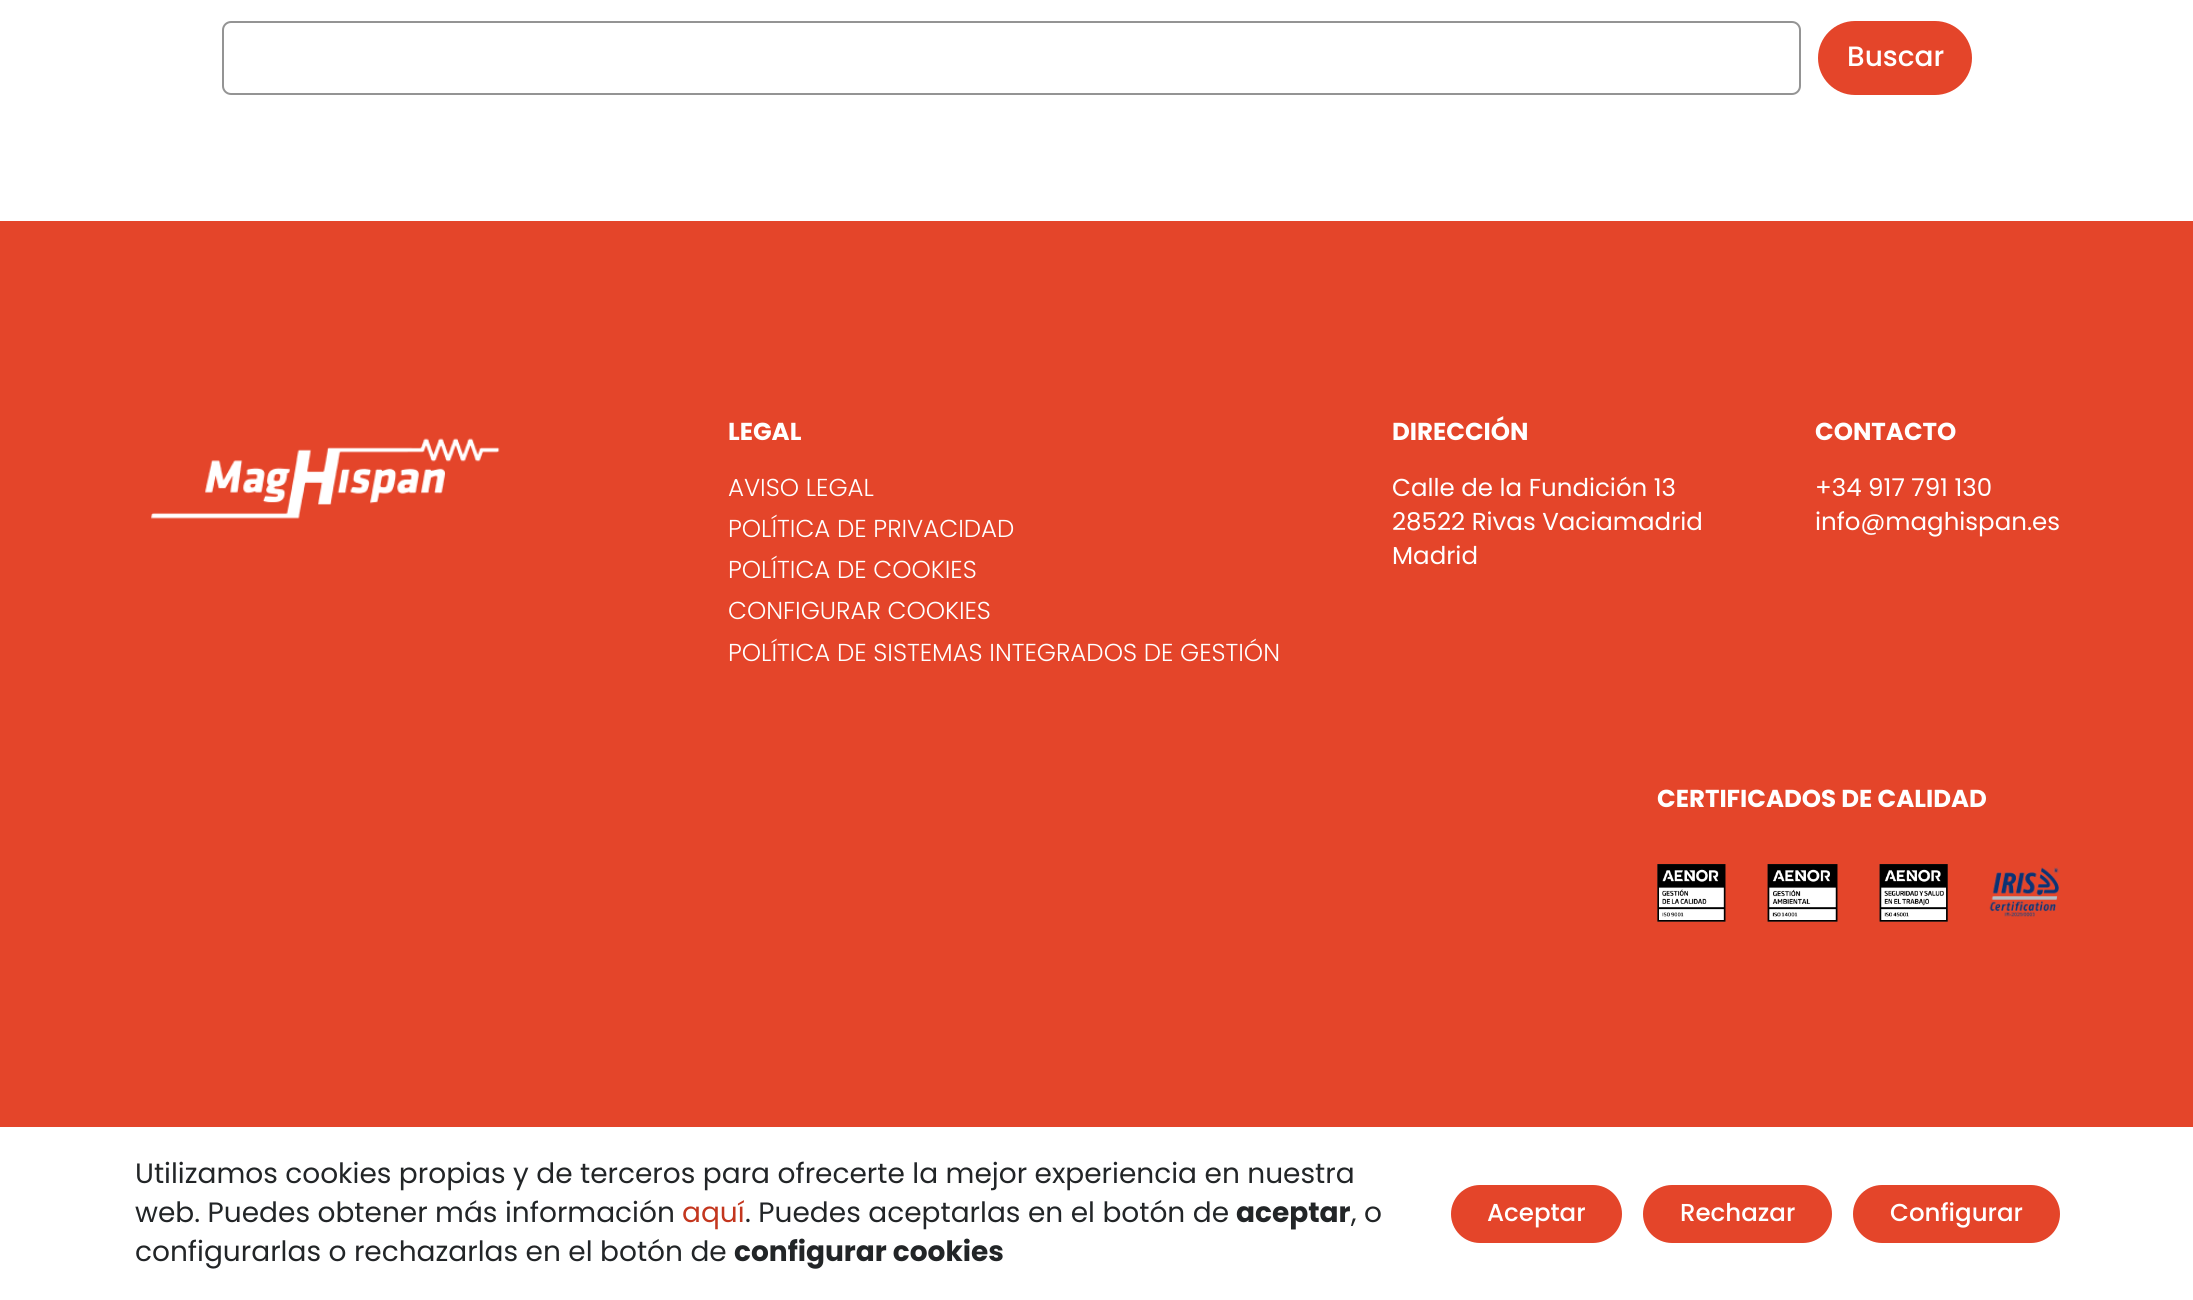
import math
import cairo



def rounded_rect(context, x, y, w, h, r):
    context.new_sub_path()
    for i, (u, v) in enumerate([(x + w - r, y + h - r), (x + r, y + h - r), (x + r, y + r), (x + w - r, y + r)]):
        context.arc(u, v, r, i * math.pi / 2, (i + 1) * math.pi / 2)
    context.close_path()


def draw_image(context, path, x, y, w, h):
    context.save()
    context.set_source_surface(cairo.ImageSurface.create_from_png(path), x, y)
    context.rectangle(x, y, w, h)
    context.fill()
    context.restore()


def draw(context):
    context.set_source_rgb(1, 1, 1)
    context.paint()
    rounded_rect(context, 223, 22, 1577, 72, 8)
    context.set_source_rgb(148 / 255, 148 / 255, 148 / 255)
    context.stroke()
    context.set_source_rgb(228 / 255, 69 / 255, 42 / 255)
    rounded_rect(context, 1818, 21, 154, 74, 37)
    context.fill()
    context.rectangle(0, 221, 2193, 906)
    context.fill()
    draw_image(context, "images/1.png", 151, 438, 349, 81)
    draw_image(context, "images/2.png", 1657, 864, 69, 58)
    draw_image(context, "images/3.png", 1767, 864, 71, 58)
    draw_image(context, "images/4.png", 1879, 864, 69, 58)
    draw_image(context, "images/5.png", 1989, 867, 70, 50)
    rounded_rect(context, 1451, 1185, 171, 58, 29)
    context.fill()
    rounded_rect(context, 1643, 1185, 189, 58, 29)
    context.fill()
    rounded_rect(context, 1853, 1185, 207, 58, 29)
    context.fill()
    context.select_font_face("Poppins Medium")
    context.set_font_size(28)
    context.set_source_rgb(1, 1, 1)
    context.move_to(1847, 66)
    context.show_text("Buscar")
    context.select_font_face("Poppins", cairo.FontSlant.NORMAL, cairo.FontWeight.BOLD)
    context.set_font_size(24.5)
    context.move_to(728, 440)
    context.show_text("LEGAL")
    context.select_font_face("Poppins Light")
    context.move_to(728, 496)
    context.show_text("AVISO LEGAL")
    context.move_to(728, 537)
    context.show_text("POLÍTICA DE PRIVACIDAD")
    context.move_to(728, 578)
    context.show_text("POLÍTICA DE COOKIES")
    context.move_to(728, 619)
    context.show_text("CONFIGURAR COOKIES")
    context.move_to(728, 661)
    context.show_text("POLÍTICA DE SISTEMAS INTEGRADOS DE GESTIÓN")
    context.select_font_face("Poppins", cairo.FontSlant.NORMAL, cairo.FontWeight.BOLD)
    context.move_to(1392, 440)
    context.show_text("DIRECCIÓN")
    context.select_font_face("Poppins")
    context.move_to(1392, 496)
    context.show_text("Calle de la Fundición 13")
    context.move_to(1392, 530)
    context.show_text("28522 Rivas Vaciamadrid")
    context.move_to(1392, 564)
    context.show_text("Madrid")
    context.select_font_face("Poppins", cairo.FontSlant.NORMAL, cairo.FontWeight.BOLD)
    context.move_to(1815, 440)
    context.show_text("CONTACTO")
    context.select_font_face("Poppins")
    context.move_to(1815, 496)
    context.show_text("+34 917 791 130")
    context.move_to(1815, 530)
    context.show_text("info@maghispan.es")
    context.select_font_face("Poppins", cairo.FontSlant.NORMAL, cairo.FontWeight.BOLD)
    context.move_to(1657, 807)
    context.show_text("CERTIFICADOS DE CALIDAD")
    context.select_font_face("Poppins")
    context.set_font_size(28)
    context.set_source_rgb(34 / 255, 37 / 255, 39 / 255)
    context.move_to(135, 1183)
    context.show_text("Utilizamos cookies propias y de terceros para ofrecerte la mejor experiencia en nuestra")
    context.move_to(135, 1222)
    context.show_text("web. Puedes obtener más información")
    context.set_source_rgb(195 / 255, 54 / 255, 30 / 255)
    context.move_to(682, 1222)
    context.show_text("aquí")
    context.set_source_rgb(34 / 255, 37 / 255, 39 / 255)
    context.move_to(745, 1222)
    context.show_text(". Puedes aceptarlas en el botón de")
    context.select_font_face("Poppins", cairo.FontSlant.NORMAL, cairo.FontWeight.BOLD)
    context.move_to(1236, 1222)
    context.show_text("aceptar")
    context.select_font_face("Poppins")
    context.move_to(1351, 1222)
    context.show_text(", o")
    context.move_to(135, 1261)
    context.show_text("configurarlas o rechazarlas en el botón de")
    context.select_font_face("Poppins", cairo.FontSlant.NORMAL, cairo.FontWeight.BOLD)
    context.move_to(734, 1261)
    context.show_text("configurar cookies")
    context.select_font_face("Poppins Medium")
    context.set_font_size(24.5)
    context.set_source_rgb(1, 1, 1)
    context.move_to(1487, 1221)
    context.show_text("Aceptar")
    context.move_to(1680, 1221)
    context.show_text("Rechazar")
    context.move_to(1890, 1221)
    context.show_text("Configurar")


surface = cairo.ImageSurface(cairo.Format.RGB24, 2193, 1300)
context = cairo.Context(surface)
options = cairo.FontOptions()
options.set_hint_metrics(cairo.HintMetrics.OFF)
options.set_hint_style(cairo.HintStyle.NONE)
context.set_font_options(options)
context.set_miter_limit(4)
draw(context)
surface.write_to_png("out.png")
